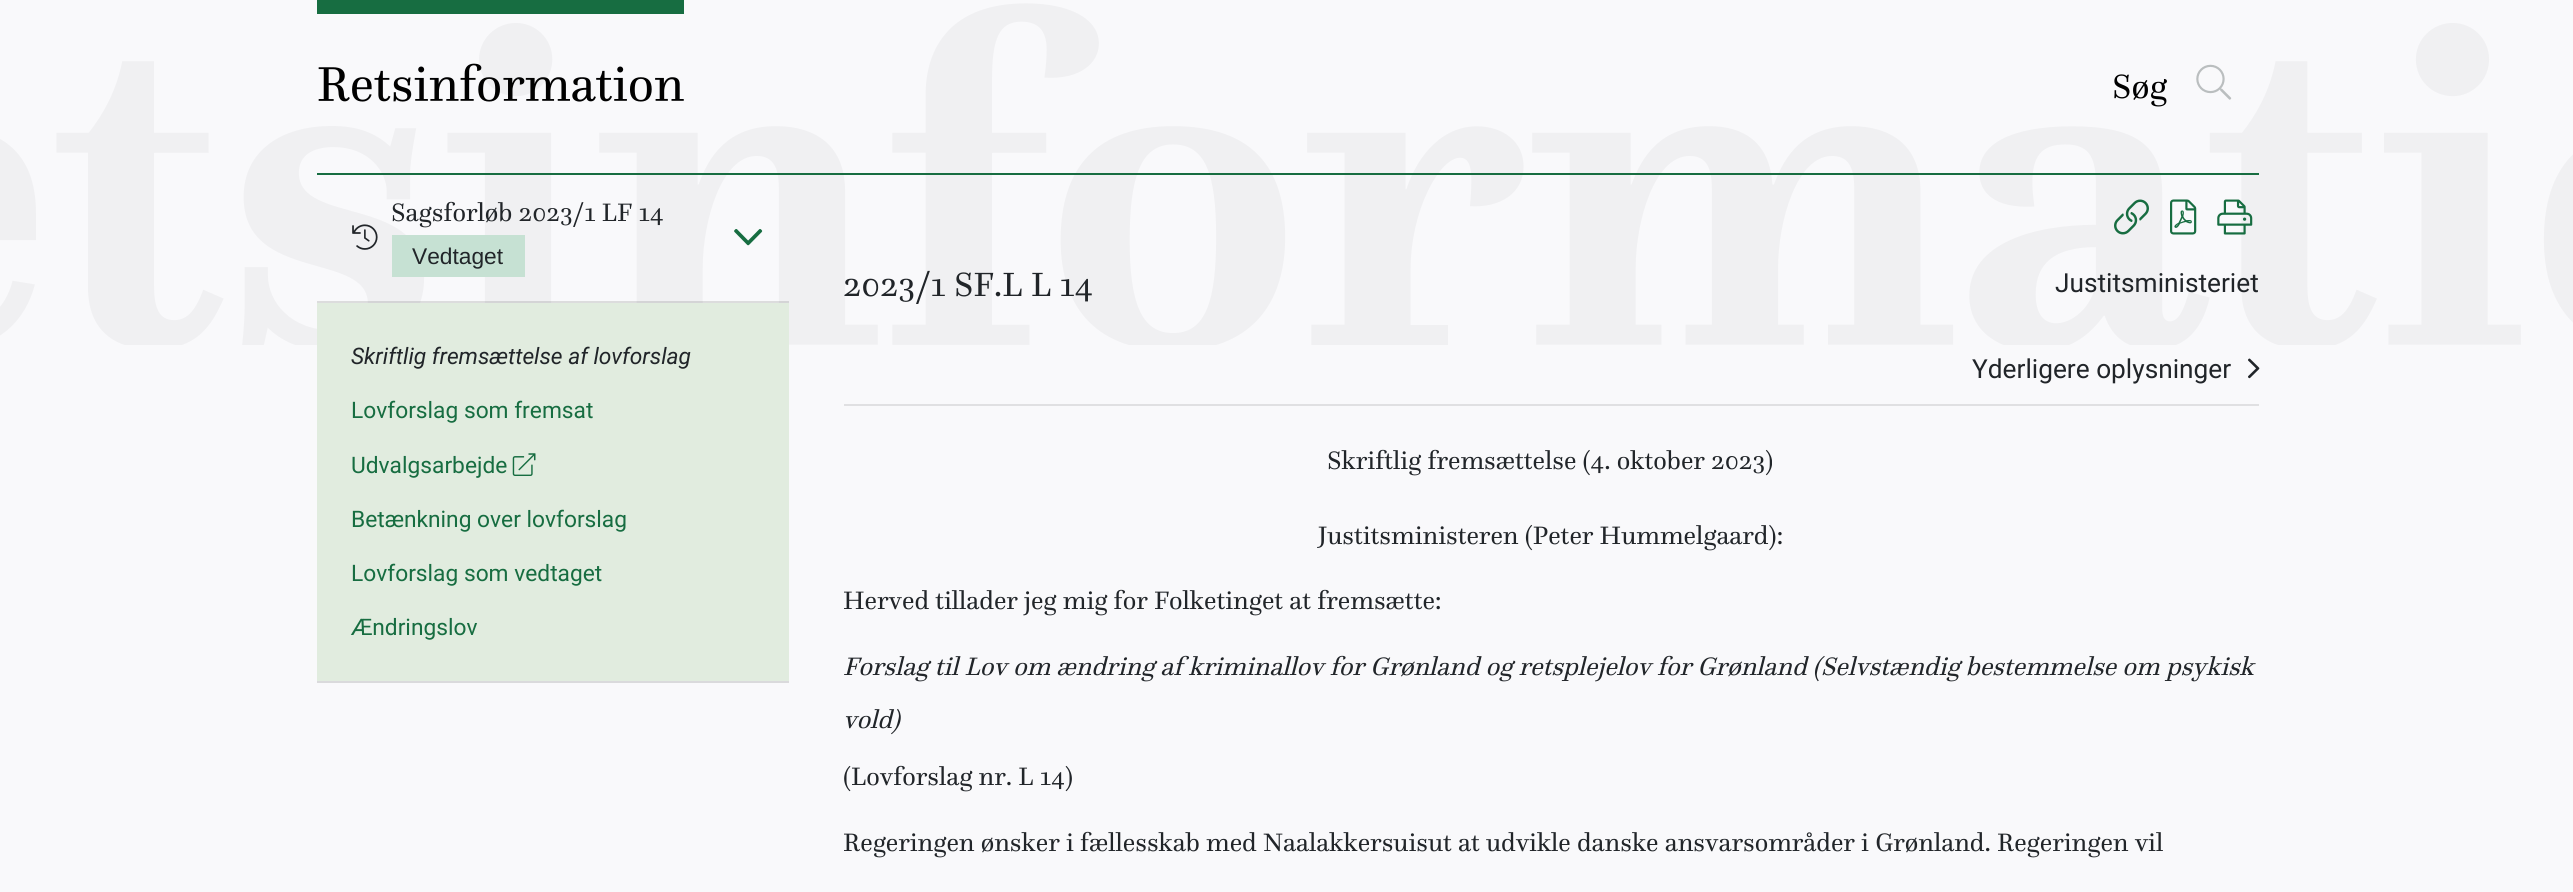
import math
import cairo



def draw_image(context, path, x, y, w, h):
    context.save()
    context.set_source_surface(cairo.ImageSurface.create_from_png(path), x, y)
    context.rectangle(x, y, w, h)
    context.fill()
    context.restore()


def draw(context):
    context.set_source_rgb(249 / 255, 249 / 255, 251 / 255)
    context.paint()
    draw_image(context, "images/1.png", 0, 3, 2573, 342)
    context.set_source_rgb(23 / 255, 109 / 255, 65 / 255)
    context.rectangle(317, 173, 1942, 2)
    context.fill()
    context.rectangle(317, 0, 367, 14)
    context.fill()
    draw_image(context, "images/2.png", 318, 63, 366, 39)
    draw_image(context, "images/3.png", 2196, 64, 36, 36)
    context.set_source_rgb(218 / 255, 218 / 255, 220 / 255)
    context.rectangle(317, 681, 472, 2)
    context.fill()
    context.set_source_rgba(0, 0, 0, 0.12)
    context.rectangle(317, 301, 472, 2)
    context.fill()
    draw_image(context, "images/4.png", 352, 224, 26, 26)
    context.set_source_rgb(198 / 255, 225 / 255, 211 / 255)
    context.rectangle(392, 235, 133, 42)
    context.fill()
    draw_image(context, "images/5.png", 734, 229, 29, 17)
    context.set_source_rgb(225 / 255, 236 / 255, 223 / 255)
    context.rectangle(317, 303, 472, 378)
    context.fill()
    draw_image(context, "images/6.png", 512, 453, 24, 23)
    draw_image(context, "images/7.png", 2114, 199, 35, 36)
    draw_image(context, "images/8.png", 2170, 199, 27, 36)
    draw_image(context, "images/9.png", 2217, 199, 36, 36)
    draw_image(context, "images/10.png", 2248, 358, 12, 21)
    context.set_source_rgb(224 / 255, 224 / 255, 226 / 255)
    context.rectangle(844, 404, 1415, 2)
    context.fill()
    context.select_font_face("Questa")
    context.set_font_size(35)
    context.set_source_rgb(0, 0, 0)
    context.move_to(2112, 98)
    context.show_text("Søg")
    context.set_font_size(26.25)
    context.set_source_rgb(33 / 255, 37 / 255, 41 / 255)
    context.move_to(391, 221)
    context.show_text("Sagsforløb 2023/1 LF 14")
    context.select_font_face("Liberation Sans")
    context.set_font_size(22.75)
    context.move_to(412, 264)
    context.show_text("Vedtaget")
    context.select_font_face("Roboto", cairo.FontSlant.ITALIC)
    context.move_to(351, 364)
    context.show_text("Skriftlig fremsættelse af lovforslag")
    context.select_font_face("Roboto")
    context.set_source_rgb(23 / 255, 109 / 255, 65 / 255)
    context.move_to(351, 418)
    context.show_text("Lovforslag som fremsat")
    context.move_to(351, 473)
    context.show_text("Udvalgsarbejde")
    context.move_to(351, 527)
    context.show_text("Betænkning over lovforslag")
    context.move_to(351, 581)
    context.show_text("Lovforslag som vedtaget")
    context.move_to(351, 635)
    context.show_text("Ændringslov")
    context.select_font_face("Questa")
    context.set_font_size(35)
    context.set_source_rgb(33 / 255, 37 / 255, 41 / 255)
    context.move_to(843, 296)
    context.show_text("2023/1 SF.L L 14")
    context.select_font_face("Roboto")
    context.set_font_size(26.25)
    context.move_to(2055, 292)
    context.show_text("Justitsministeriet")
    context.move_to(1972, 378)
    context.show_text("Yderligere oplysninger")
    context.select_font_face("Questa")
    context.move_to(1327, 469)
    context.show_text("Skriftlig fremsættelse (4. oktober 2023)")
    context.move_to(1318, 544)
    context.show_text("Justitsministeren (Peter Hummelgaard):")
    context.move_to(843, 609)
    context.show_text("Herved tillader jeg mig for Folketinget at fremsætte:")
    context.select_font_face("Questa", cairo.FontSlant.ITALIC)
    context.move_to(843, 675)
    context.show_text("Forslag til Lov om ændring af kriminallov for Grønland og retsplejelov for Grønland (Selvstændig bestemmelse om psykisk")
    context.move_to(843, 728)
    context.show_text("vold)")
    context.select_font_face("Questa")
    context.move_to(843, 785)
    context.show_text("(Lovforslag nr. L 14)")
    context.move_to(843, 851)
    context.show_text("Regeringen ønsker i fællesskab med Naalakkersuisut at udvikle danske ansvarsområder i Grønland. Regeringen vil")


surface = cairo.ImageSurface(cairo.Format.RGB24, 2573, 892)
context = cairo.Context(surface)
options = cairo.FontOptions()
options.set_hint_metrics(cairo.HintMetrics.OFF)
options.set_hint_style(cairo.HintStyle.NONE)
context.set_font_options(options)
context.set_miter_limit(4)
draw(context)
surface.write_to_png("out.png")
